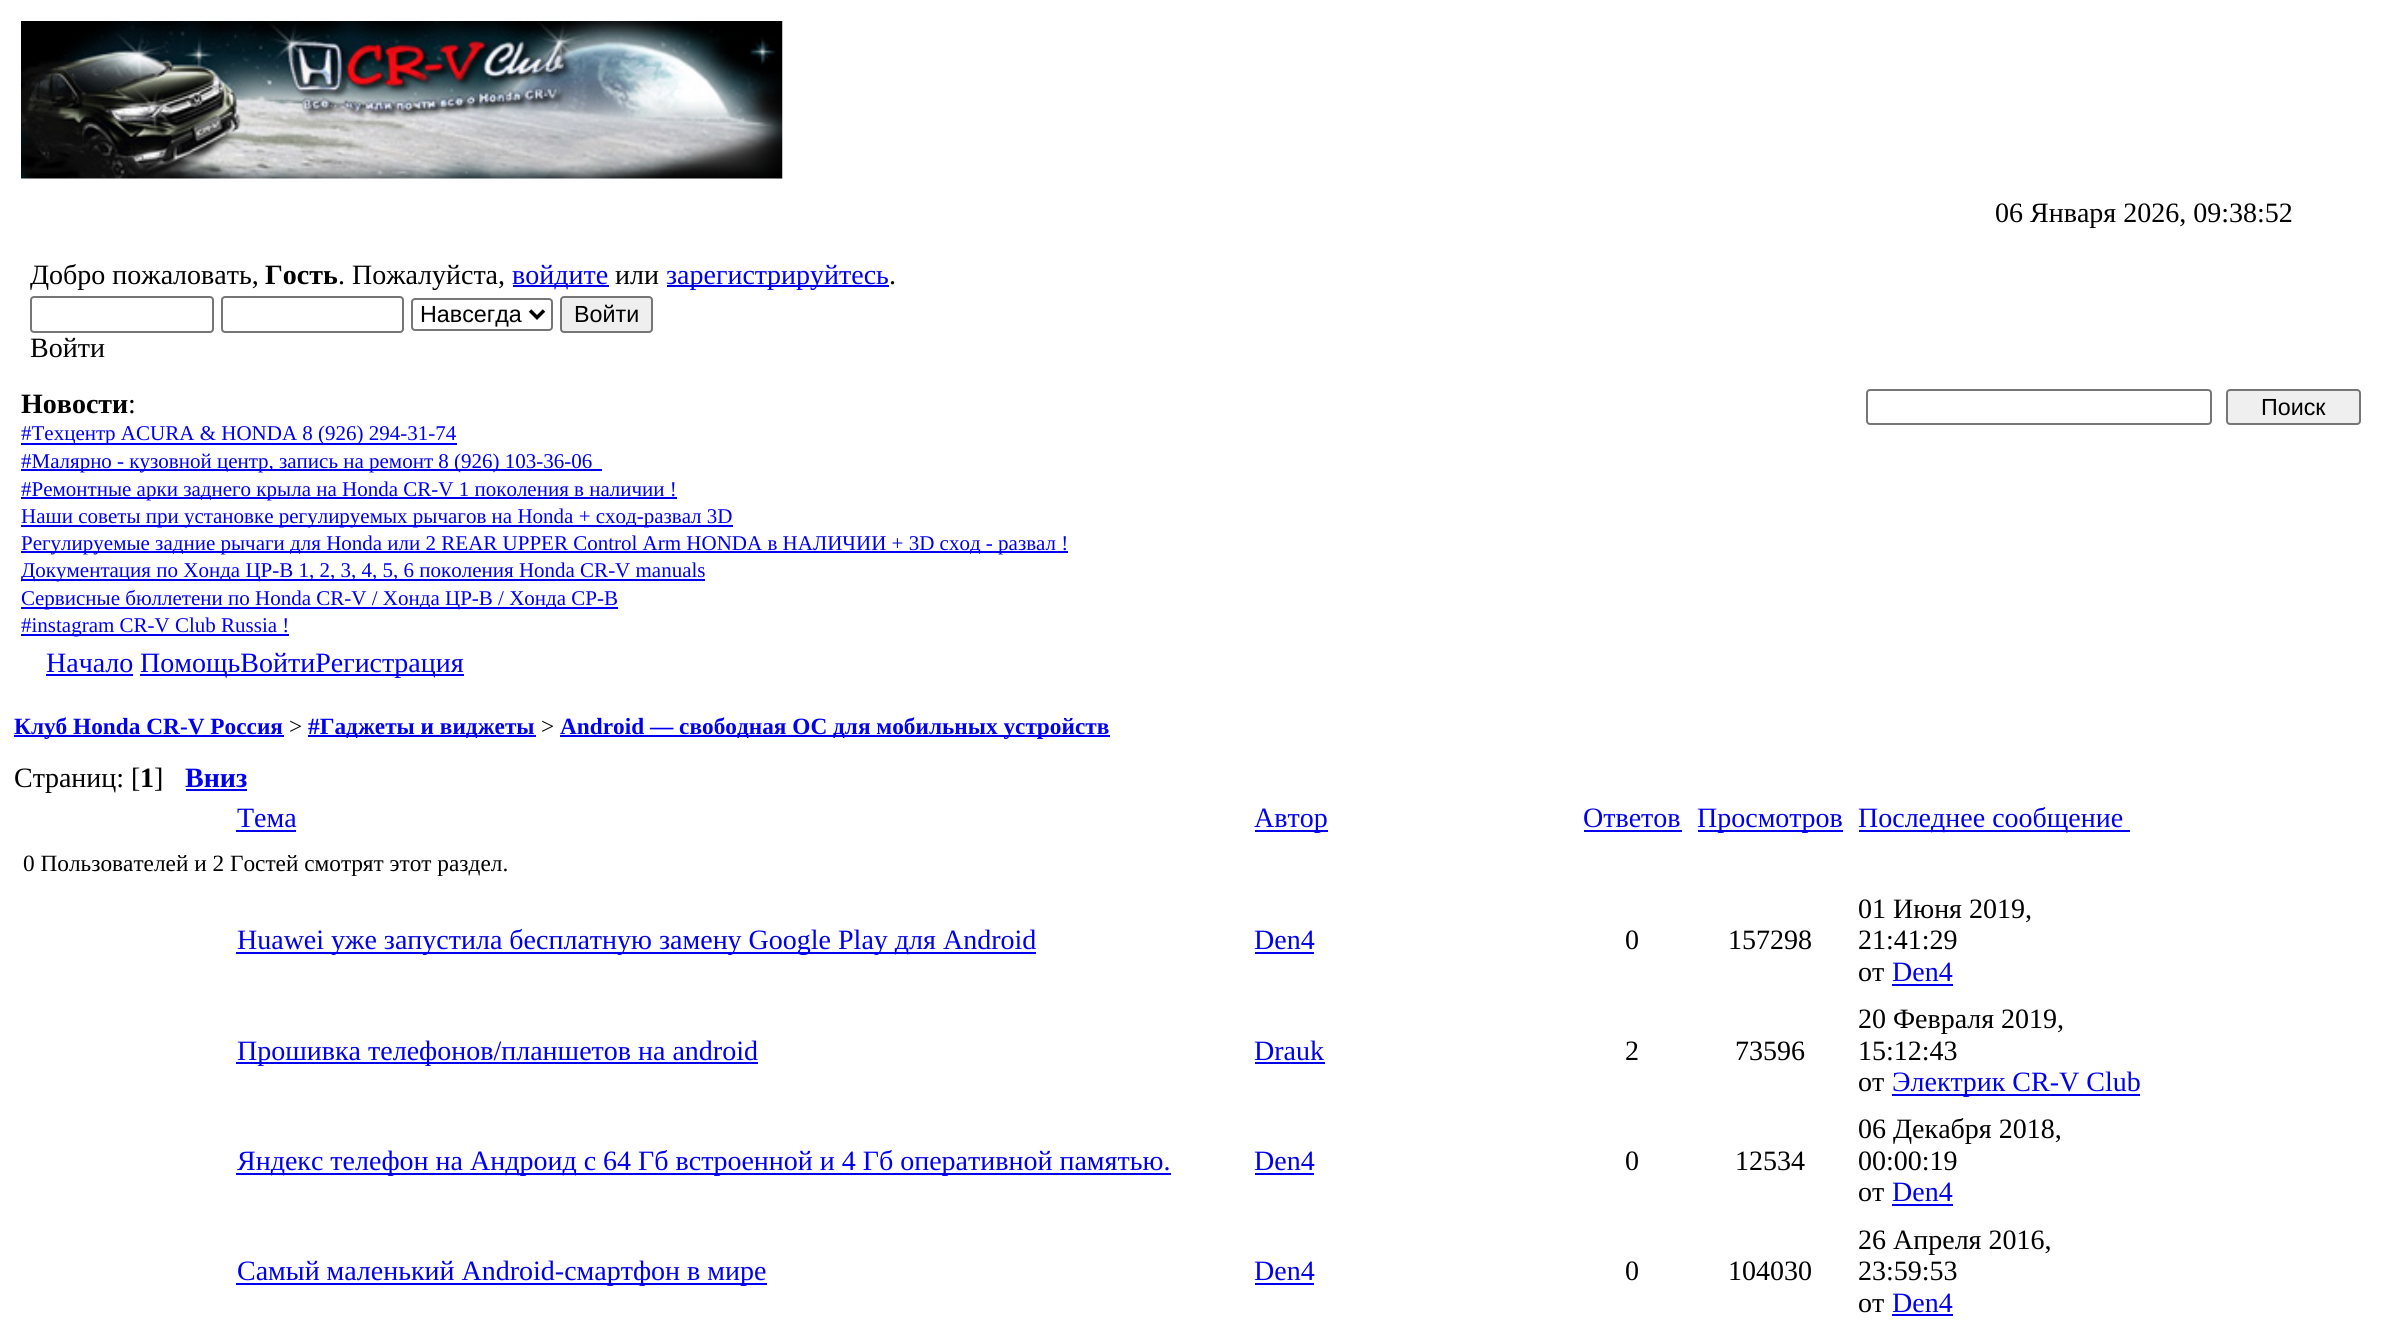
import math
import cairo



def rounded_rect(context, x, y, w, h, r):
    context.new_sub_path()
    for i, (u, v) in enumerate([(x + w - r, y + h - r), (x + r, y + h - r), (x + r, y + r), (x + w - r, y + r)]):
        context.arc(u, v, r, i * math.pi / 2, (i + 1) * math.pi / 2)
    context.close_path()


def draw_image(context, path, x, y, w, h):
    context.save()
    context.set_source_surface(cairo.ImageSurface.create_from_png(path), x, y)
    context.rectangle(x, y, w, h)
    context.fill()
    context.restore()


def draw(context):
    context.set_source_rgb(1, 1, 1)
    context.paint()
    draw_image(context, "images/1.png", 21, 21, 762, 158)
    context.set_source_rgb(0, 0, 238 / 255)
    context.rectangle(513, 285, 96, 2)
    context.fill()
    context.rectangle(667, 285, 222, 2)
    context.fill()
    rounded_rect(context, 31, 297, 182, 35, 3)
    context.set_source_rgb(118 / 255, 118 / 255, 118 / 255)
    context.stroke()
    rounded_rect(context, 222, 297, 181, 35, 3)
    context.stroke()
    rounded_rect(context, 412, 299, 140, 31, 3)
    context.stroke()
    context.new_path()
    context.move_to(530, 310.5)
    context.line_to(537, 317.5)
    context.line_to(544, 310.5)
    context.set_source_rgb(0, 0, 0)
    context.set_line_width(3.5)
    context.stroke()
    context.set_source_rgb(239 / 255, 239 / 255, 239 / 255)
    rounded_rect(context, 561, 297, 91, 35, 3)
    context.fill_preserve()
    context.set_source_rgb(118 / 255, 118 / 255, 118 / 255)
    context.set_line_width(2)
    context.stroke()
    context.set_source_rgb(0, 0, 238 / 255)
    context.rectangle(21, 443, 436, 2)
    context.fill()
    context.rectangle(21, 469, 581, 2)
    context.fill()
    context.rectangle(21, 497, 656, 2)
    context.fill()
    context.rectangle(21, 525, 712, 2)
    context.fill()
    context.rectangle(21, 551, 1047, 2)
    context.fill()
    context.rectangle(21, 579, 684, 2)
    context.fill()
    context.rectangle(21, 607, 597, 2)
    context.fill()
    context.rectangle(21, 634, 268, 2)
    context.fill()
    rounded_rect(context, 1867, 390, 344, 34, 3)
    context.set_source_rgb(118 / 255, 118 / 255, 118 / 255)
    context.stroke()
    context.set_source_rgb(239 / 255, 239 / 255, 239 / 255)
    rounded_rect(context, 2227, 390, 133, 34, 3)
    context.fill_preserve()
    context.set_source_rgb(118 / 255, 118 / 255, 118 / 255)
    context.stroke()
    context.set_source_rgb(0, 0, 238 / 255)
    context.rectangle(46, 674, 87, 2)
    context.fill()
    context.rectangle(140, 674, 324, 2)
    context.fill()
    context.rectangle(14, 735, 270, 2)
    context.fill()
    context.rectangle(308, 735, 228, 2)
    context.fill()
    context.rectangle(560, 735, 550, 2)
    context.fill()
    context.rectangle(186, 789, 61, 2)
    context.fill()
    context.rectangle(236, 830, 60, 2)
    context.fill()
    context.rectangle(1255, 830, 73, 2)
    context.fill()
    context.rectangle(1584, 830, 98, 2)
    context.fill()
    context.rectangle(1698, 830, 145, 2)
    context.fill()
    context.rectangle(1859, 830, 271, 2)
    context.fill()
    context.rectangle(236, 952, 800, 2)
    context.fill()
    context.rectangle(1255, 952, 59, 2)
    context.fill()
    context.rectangle(1892, 984, 61, 2)
    context.fill()
    context.rectangle(236, 1062, 522, 2)
    context.fill()
    context.rectangle(1255, 1062, 70, 2)
    context.fill()
    context.rectangle(1892, 1094, 248, 2)
    context.fill()
    context.rectangle(236, 1173, 935, 2)
    context.fill()
    context.rectangle(1255, 1173, 59, 2)
    context.fill()
    context.rectangle(1892, 1204, 61, 2)
    context.fill()
    context.rectangle(236, 1283, 531, 2)
    context.fill()
    context.rectangle(1255, 1283, 59, 2)
    context.fill()
    context.rectangle(1892, 1314, 61, 2)
    context.fill()
    context.select_font_face("Liberation Serif")
    context.set_font_size(28)
    context.set_source_rgb(0, 0, 0)
    context.move_to(1995, 222)
    context.show_text("06 Января 2026, 09:38:52")
    context.move_to(30, 284)
    context.show_text("Добро пожаловать,")
    context.select_font_face("Liberation Serif", cairo.FontSlant.NORMAL, cairo.FontWeight.BOLD)
    context.move_to(265, 284)
    context.show_text("Гость")
    context.select_font_face("Liberation Serif")
    context.move_to(338, 284)
    context.show_text(". Пожалуйста,")
    context.set_source_rgb(0, 0, 238 / 255)
    context.move_to(512, 284)
    context.show_text("войдите")
    context.set_source_rgb(0, 0, 0)
    context.move_to(615, 284)
    context.show_text("или")
    context.set_source_rgb(0, 0, 238 / 255)
    context.move_to(666, 284)
    context.show_text("зарегистрируйтесь")
    context.set_source_rgb(0, 0, 0)
    context.move_to(889, 284)
    context.show_text(".")
    context.select_font_face("Liberation Sans")
    context.set_font_size(23.3)
    context.move_to(420, 322)
    context.show_text("Навсегда")
    context.move_to(574, 322)
    context.show_text("Войти")
    context.select_font_face("Liberation Serif")
    context.set_font_size(28)
    context.move_to(30, 357)
    context.show_text("Войти")
    context.select_font_face("Liberation Serif", cairo.FontSlant.NORMAL, cairo.FontWeight.BOLD)
    context.move_to(21, 413)
    context.show_text("Новости")
    context.select_font_face("Liberation Serif")
    context.move_to(128, 413)
    context.show_text(":")
    context.set_font_size(21)
    context.set_source_rgb(0, 0, 238 / 255)
    context.move_to(21, 440)
    context.show_text("#Техцентр ACURA & HONDA 8 (926) 294-31-74")
    context.move_to(21, 468)
    context.show_text("#Малярно - кузовной центр, запись на ремонт 8 (926) 103-36-06")
    context.move_to(21, 496)
    context.show_text("#Ремонтные арки заднего крыла на Honda CR-V 1 поколения в наличии !")
    context.move_to(21, 523)
    context.show_text("Наши советы при установке регулируемых рычагов на Honda + сход-развал 3D")
    context.move_to(21, 550)
    context.show_text("Регулируемые задние рычаги для Honda или 2 REAR UPPER Control Arm HONDA в НАЛИЧИИ + 3D сход - развал !")
    context.move_to(21, 577)
    context.show_text("Документация по Хонда ЦР-В 1, 2, 3, 4, 5, 6 поколения Honda CR-V manuals")
    context.move_to(21, 605)
    context.show_text("Сервисные бюллетени по Honda CR-V / Хонда ЦР-В / Хонда СР-В")
    context.move_to(21, 632)
    context.show_text("#instagram CR-V Club Russia !")
    context.select_font_face("Liberation Sans")
    context.set_font_size(23.3)
    context.set_source_rgb(0, 0, 0)
    context.move_to(2261, 415)
    context.show_text("Поиск")
    context.select_font_face("Liberation Serif")
    context.set_font_size(28)
    context.set_source_rgb(0, 0, 238 / 255)
    context.move_to(46, 672)
    context.show_text("Начало")
    context.move_to(140, 672)
    context.show_text("ПомощьВойтиРегистрация")
    context.select_font_face("Liberation Serif", cairo.FontSlant.NORMAL, cairo.FontWeight.BOLD)
    context.set_font_size(23.3)
    context.move_to(14, 734)
    context.show_text("Клуб Honda CR-V Россия")
    context.select_font_face("Liberation Serif")
    context.set_source_rgb(0, 0, 0)
    context.move_to(289, 734)
    context.show_text(">")
    context.select_font_face("Liberation Serif", cairo.FontSlant.NORMAL, cairo.FontWeight.BOLD)
    context.set_source_rgb(0, 0, 238 / 255)
    context.move_to(308, 734)
    context.show_text("#Гаджеты и виджеты")
    context.select_font_face("Liberation Serif")
    context.set_source_rgb(0, 0, 0)
    context.move_to(541, 734)
    context.show_text(">")
    context.select_font_face("Liberation Serif", cairo.FontSlant.NORMAL, cairo.FontWeight.BOLD)
    context.set_source_rgb(0, 0, 238 / 255)
    context.move_to(560, 734)
    context.show_text("Android — свободная ОС для мобильных устройств")
    context.select_font_face("Liberation Serif")
    context.set_font_size(28)
    context.set_source_rgb(0, 0, 0)
    context.move_to(14, 787)
    context.show_text("Страниц: [")
    context.select_font_face("Liberation Serif", cairo.FontSlant.NORMAL, cairo.FontWeight.BOLD)
    context.move_to(140, 787)
    context.show_text("1")
    context.select_font_face("Liberation Serif")
    context.move_to(154, 787)
    context.show_text("]")
    context.select_font_face("Liberation Serif", cairo.FontSlant.NORMAL, cairo.FontWeight.BOLD)
    context.set_source_rgb(0, 0, 238 / 255)
    context.move_to(185, 787)
    context.show_text("Вниз")
    context.select_font_face("Liberation Serif")
    context.move_to(237, 827)
    context.show_text("Тема")
    context.move_to(1254, 827)
    context.show_text("Автор")
    context.move_to(1583, 827)
    context.show_text("Ответов")
    context.move_to(1697, 827)
    context.show_text("Просмотров")
    context.move_to(1858, 827)
    context.show_text("Последнее сообщение")
    context.set_font_size(23.3)
    context.set_source_rgb(0, 0, 0)
    context.move_to(23, 871)
    context.show_text("0 Пользователей и 2 Гостей смотрят этот раздел.")
    context.set_font_size(28)
    context.set_source_rgb(0, 0, 238 / 255)
    context.move_to(237, 949)
    context.show_text("Huawei уже запустила бесплатную замену Google Play для Android")
    context.move_to(1254, 949)
    context.show_text("Den4")
    context.set_source_rgb(0, 0, 0)
    context.move_to(1625, 949)
    context.show_text("0")
    context.move_to(1728, 949)
    context.show_text("157298")
    context.move_to(1858, 918)
    context.show_text("01 Июня 2019,")
    context.move_to(1858, 949)
    context.show_text("21:41:29")
    context.move_to(1858, 981)
    context.show_text("от")
    context.set_source_rgb(0, 0, 238 / 255)
    context.move_to(1892, 981)
    context.show_text("Den4")
    context.move_to(237, 1060)
    context.show_text("Прошивка телефонов/планшетов на android")
    context.move_to(1254, 1060)
    context.show_text("Drauk")
    context.set_source_rgb(0, 0, 0)
    context.move_to(1625, 1060)
    context.show_text("2")
    context.move_to(1735, 1060)
    context.show_text("73596")
    context.move_to(1858, 1028)
    context.show_text("20 Февраля 2019,")
    context.move_to(1858, 1060)
    context.show_text("15:12:43")
    context.move_to(1858, 1091)
    context.show_text("от")
    context.set_source_rgb(0, 0, 238 / 255)
    context.move_to(1892, 1091)
    context.show_text("Электрик CR-V Club")
    context.move_to(237, 1170)
    context.show_text("Яндекс телефон на Андроид с 64 Гб встроенной и 4 Гб оперативной памятью.")
    context.move_to(1254, 1170)
    context.show_text("Den4")
    context.set_source_rgb(0, 0, 0)
    context.move_to(1625, 1170)
    context.show_text("0")
    context.move_to(1735, 1170)
    context.show_text("12534")
    context.move_to(1858, 1138)
    context.show_text("06 Декабря 2018,")
    context.move_to(1858, 1170)
    context.show_text("00:00:19")
    context.move_to(1858, 1201)
    context.show_text("от")
    context.set_source_rgb(0, 0, 238 / 255)
    context.move_to(1892, 1201)
    context.show_text("Den4")
    context.move_to(237, 1280)
    context.show_text("Самый маленький Android-смартфон в мире")
    context.move_to(1254, 1280)
    context.show_text("Den4")
    context.set_source_rgb(0, 0, 0)
    context.move_to(1625, 1280)
    context.show_text("0")
    context.move_to(1728, 1280)
    context.show_text("104030")
    context.move_to(1858, 1249)
    context.show_text("26 Апреля 2016,")
    context.move_to(1858, 1280)
    context.show_text("23:59:53")
    context.move_to(1858, 1312)
    context.show_text("от")
    context.set_source_rgb(0, 0, 238 / 255)
    context.move_to(1892, 1312)
    context.show_text("Den4")


surface = cairo.ImageSurface(cairo.Format.RGB24, 2381, 1326)
context = cairo.Context(surface)
options = cairo.FontOptions()
options.set_hint_metrics(cairo.HintMetrics.OFF)
options.set_hint_style(cairo.HintStyle.NONE)
context.set_font_options(options)
context.set_miter_limit(4)
draw(context)
surface.write_to_png("out.png")
